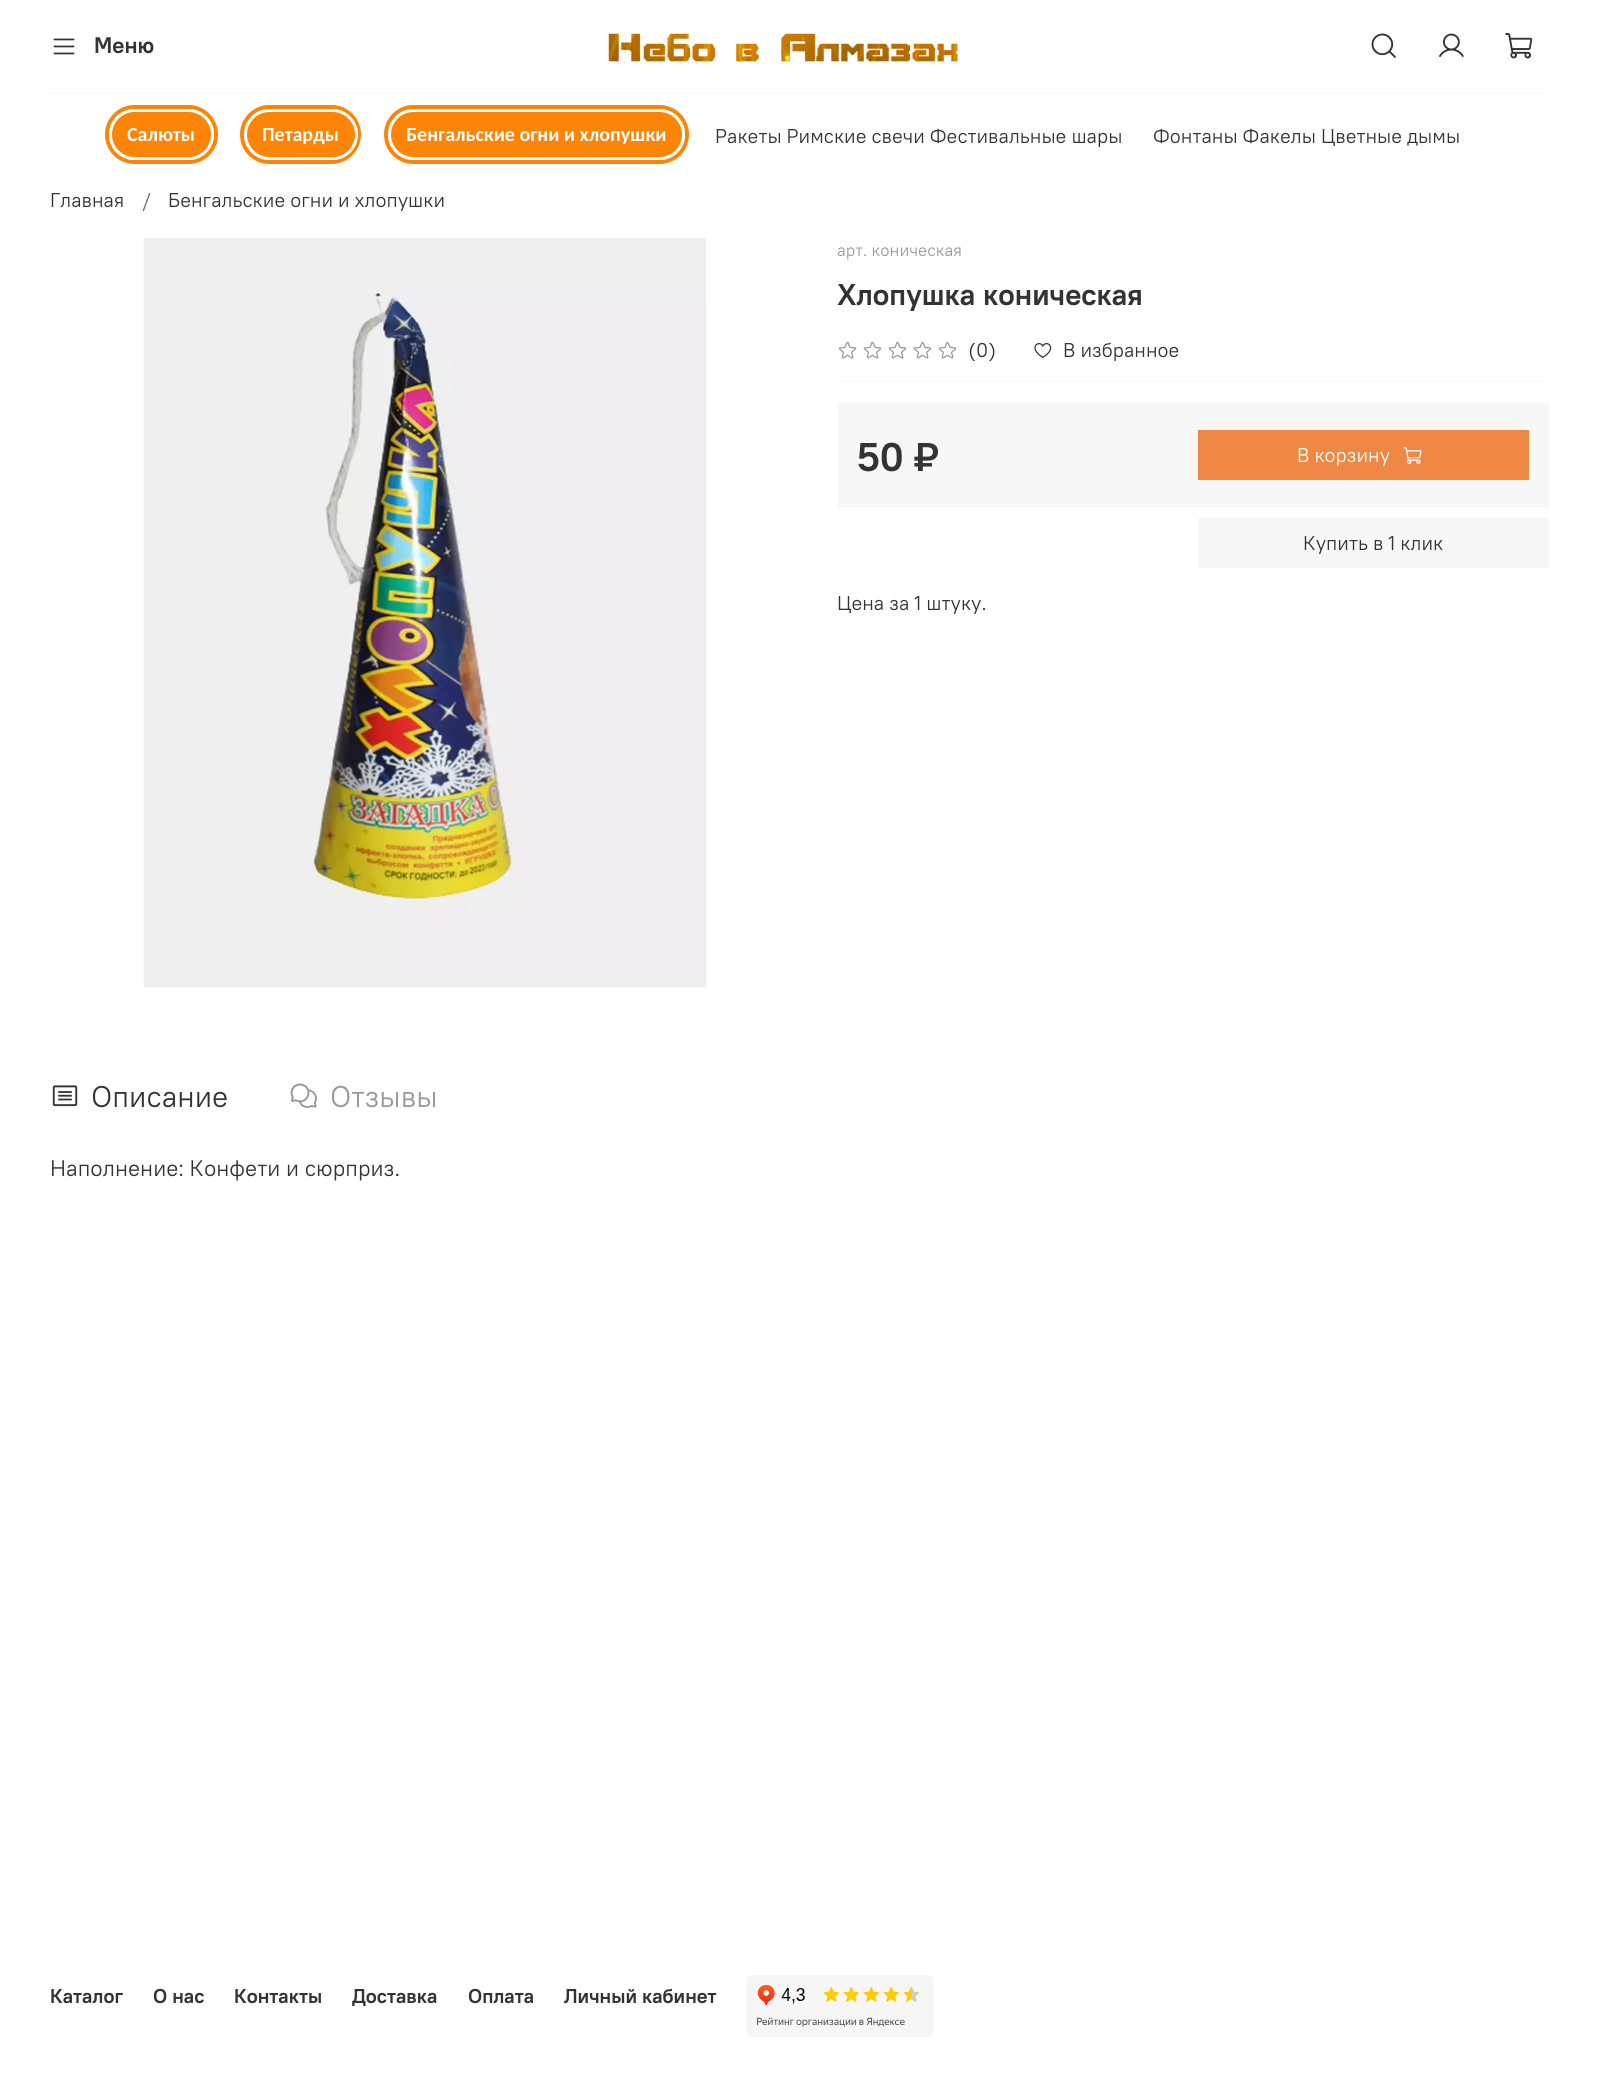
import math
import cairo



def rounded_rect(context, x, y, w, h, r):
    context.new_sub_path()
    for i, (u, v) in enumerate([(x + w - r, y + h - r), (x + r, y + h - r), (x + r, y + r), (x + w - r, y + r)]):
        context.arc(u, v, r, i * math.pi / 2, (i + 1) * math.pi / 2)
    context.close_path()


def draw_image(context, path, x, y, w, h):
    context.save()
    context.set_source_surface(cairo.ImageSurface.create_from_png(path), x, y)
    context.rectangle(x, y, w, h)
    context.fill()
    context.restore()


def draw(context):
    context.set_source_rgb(1, 1, 1)
    context.paint()
    draw_image(context, "images/1.png", 53, 38, 22, 17)
    draw_image(context, "images/2.png", 608, 33, 350, 29)
    draw_image(context, "images/3.png", 1371, 33, 25, 25)
    draw_image(context, "images/4.png", 1439, 33, 25, 24)
    draw_image(context, "images/5.png", 1505, 33, 28, 26)
    context.set_source_rgb(247 / 255, 247 / 255, 247 / 255)
    context.rectangle(50, 93, 1499, 1)
    context.fill()
    rounded_rect(context, 107, 107, 109, 55, 27.5)
    context.set_source_rgb(252 / 255, 133 / 255, 7 / 255)
    context.set_line_width(4)
    context.stroke()
    rounded_rect(context, 110.5, 110.5, 102, 48, 24)
    context.fill_preserve()
    context.set_source_rgb(1, 1, 1)
    context.set_line_width(3)
    context.stroke()
    rounded_rect(context, 242, 107, 117, 55, 27.5)
    context.set_source_rgb(252 / 255, 133 / 255, 7 / 255)
    context.set_line_width(4)
    context.stroke()
    rounded_rect(context, 245.5, 110.5, 111, 48, 24)
    context.fill_preserve()
    context.set_source_rgb(1, 1, 1)
    context.set_line_width(3)
    context.stroke()
    rounded_rect(context, 386, 107, 301, 55, 27.5)
    context.set_source_rgb(252 / 255, 133 / 255, 7 / 255)
    context.set_line_width(4)
    context.stroke()
    rounded_rect(context, 389.5, 110.5, 294, 48, 24)
    context.fill_preserve()
    context.set_source_rgb(1, 1, 1)
    context.set_line_width(3)
    context.stroke()
    draw_image(context, "images/6.png", 143, 237, 564, 751)
    context.set_source_rgb(247 / 255, 247 / 255, 247 / 255)
    context.rectangle(838, 381, 711, 1)
    context.fill()
    draw_image(context, "images/7.png", 838, 341, 19, 18)
    draw_image(context, "images/7.png", 863, 341, 19, 18)
    draw_image(context, "images/7.png", 888, 341, 19, 18)
    draw_image(context, "images/7.png", 913, 341, 19, 18)
    draw_image(context, "images/7.png", 938, 341, 19, 18)
    draw_image(context, "images/8.png", 1034, 343, 18, 15)
    context.rectangle(838, 403, 711, 105)
    context.fill()
    context.set_source_rgb(239 / 255, 136 / 255, 69 / 255)
    context.rectangle(1198, 430, 331, 50)
    context.fill()
    draw_image(context, "images/9.png", 1403, 447, 19, 17)
    context.set_source_rgb(247 / 255, 247 / 255, 247 / 255)
    context.rectangle(1198, 518, 351, 50)
    context.fill()
    draw_image(context, "images/10.png", 52, 1085, 26, 22)
    draw_image(context, "images/11.png", 290, 1083, 27, 25)
    draw_image(context, "images/12.png", 746, 1975, 188, 62)
    context.select_font_face("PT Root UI", cairo.FontSlant.NORMAL, cairo.FontWeight.BOLD)
    context.set_font_size(22.5)
    context.set_source_rgb(51 / 255, 51 / 255, 51 / 255)
    context.move_to(94, 53)
    context.show_text("Меню")
    context.select_font_face("Carlito", cairo.FontSlant.NORMAL, cairo.FontWeight.BOLD)
    context.set_font_size(20)
    context.set_source_rgb(1, 1, 1)
    context.move_to(127, 141)
    context.show_text("Салюты")
    context.move_to(262, 141)
    context.show_text("Петарды")
    context.move_to(406, 141)
    context.show_text("Бенгальские огни и хлопушки")
    context.select_font_face("PT Root UI")
    context.set_source_rgb(51 / 255, 51 / 255, 51 / 255)
    context.move_to(715, 143)
    context.show_text("Ракеты Римские свечи Фестивальные шары")
    context.move_to(1153, 143)
    context.show_text("Фонтаны Факелы Цветные дымы")
    context.move_to(50, 207)
    context.show_text("Главная")
    context.set_source_rgb(112 / 255, 112 / 255, 112 / 255)
    context.move_to(142, 207)
    context.show_text("/")
    context.set_source_rgb(51 / 255, 51 / 255, 51 / 255)
    context.move_to(168, 207)
    context.show_text("Бенгальские огни и хлопушки")
    context.set_font_size(17)
    context.set_source_rgb(153 / 255, 153 / 255, 153 / 255)
    context.move_to(837, 256)
    context.show_text("арт. коническая")
    context.select_font_face("PT Root UI", cairo.FontSlant.NORMAL, cairo.FontWeight.BOLD)
    context.set_font_size(30)
    context.set_source_rgb(51 / 255, 51 / 255, 51 / 255)
    context.move_to(837, 305)
    context.show_text("Хлопушка коническая")
    context.select_font_face("PT Root UI")
    context.set_font_size(20)
    context.move_to(968, 357)
    context.show_text("(0)")
    context.move_to(1063, 357)
    context.show_text("В избранное")
    context.select_font_face("PT Root UI", cairo.FontSlant.NORMAL, cairo.FontWeight.BOLD)
    context.set_font_size(40)
    context.move_to(857, 471)
    context.show_text("50 ₽")
    context.select_font_face("PT Root UI")
    context.set_font_size(20)
    context.set_source_rgb(1, 1, 1)
    context.move_to(1297, 462)
    context.show_text("В корзину")
    context.set_source_rgb(51 / 255, 51 / 255, 51 / 255)
    context.move_to(1303, 550)
    context.show_text("Купить в 1 клик")
    context.move_to(837, 610)
    context.show_text("Цена за 1 штуку.")
    context.set_font_size(30)
    context.move_to(91, 1107)
    context.show_text("Описание")
    context.set_source_rgb(153 / 255, 153 / 255, 153 / 255)
    context.move_to(330, 1107)
    context.show_text("Отзывы")
    context.set_font_size(22.5)
    context.set_source_rgb(51 / 255, 51 / 255, 51 / 255)
    context.move_to(50, 1176)
    context.show_text("Наполнение: Конфети и сюрприз.")
    context.select_font_face("PT Root UI", cairo.FontSlant.NORMAL, cairo.FontWeight.BOLD)
    context.set_font_size(20)
    context.move_to(50, 2003)
    context.show_text("Каталог")
    context.move_to(153, 2003)
    context.show_text("О нас")
    context.move_to(234, 2003)
    context.show_text("Контакты")
    context.move_to(352, 2003)
    context.show_text("Доставка")
    context.move_to(468, 2003)
    context.show_text("Оплата")
    context.move_to(564, 2003)
    context.show_text("Личный кабинет")


surface = cairo.ImageSurface(cairo.Format.RGB24, 1598, 2089)
context = cairo.Context(surface)
options = cairo.FontOptions()
options.set_hint_metrics(cairo.HintMetrics.OFF)
options.set_hint_style(cairo.HintStyle.NONE)
context.set_font_options(options)
context.set_miter_limit(4)
draw(context)
surface.write_to_png("out.png")
